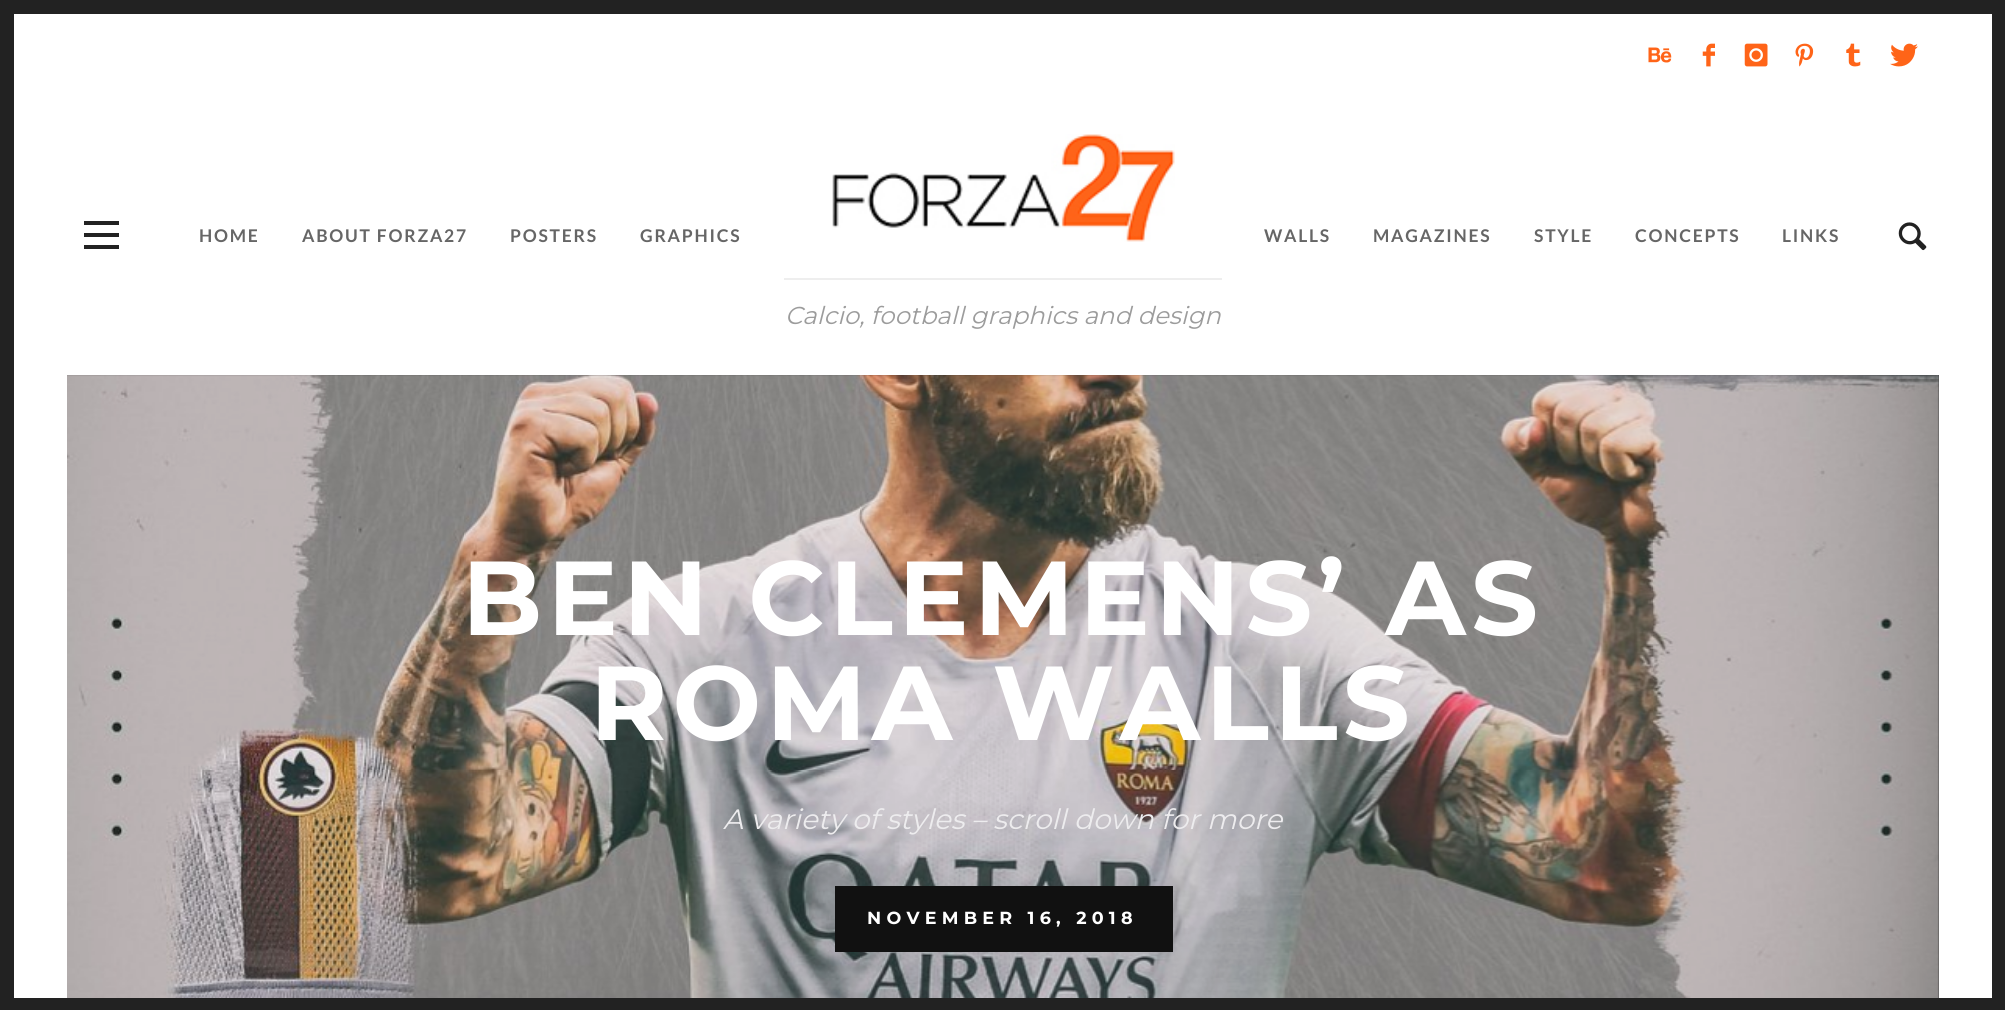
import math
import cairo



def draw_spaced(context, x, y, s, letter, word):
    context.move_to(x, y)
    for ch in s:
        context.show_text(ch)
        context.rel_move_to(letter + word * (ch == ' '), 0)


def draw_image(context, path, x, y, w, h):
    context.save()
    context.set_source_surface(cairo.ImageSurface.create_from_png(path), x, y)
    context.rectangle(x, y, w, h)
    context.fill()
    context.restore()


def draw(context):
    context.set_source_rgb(1, 1, 1)
    context.paint()
    context.rectangle(7, 7, 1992, 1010)
    context.set_source_rgb(34 / 255, 34 / 255, 34 / 255)
    context.set_line_width(14)
    context.stroke()
    draw_image(context, "images/1.png", 1648, 47, 24, 16)
    draw_image(context, "images/2.png", 1702, 43, 13, 24)
    draw_image(context, "images/3.png", 1744, 43, 24, 24)
    draw_image(context, "images/4.png", 1795, 43, 19, 24)
    draw_image(context, "images/5.png", 1846, 43, 15, 24)
    draw_image(context, "images/6.png", 1890, 43, 28, 24)
    context.rectangle(84, 233, 35, 4)
    context.fill()
    context.rectangle(84, 221, 35, 4)
    context.fill()
    context.rectangle(84, 245, 35, 4)
    context.fill()
    draw_image(context, "images/7.png", 1898, 222, 29, 29)
    draw_image(context, "images/8.png", 832, 134, 343, 108)
    context.set_source_rgb(238 / 255, 238 / 255, 238 / 255)
    context.rectangle(784, 278, 438, 2)
    context.fill()
    context.set_source_rgb(32 / 255, 32 / 255, 32 / 255)
    context.rectangle(67, 375, 1872, 623)
    context.fill()
    draw_image(context, "images/9.png", 67, 375, 1872, 623)
    context.set_source_rgb(17 / 255, 17 / 255, 17 / 255)
    context.rectangle(835, 886, 338, 66)
    context.fill()
    context.set_source_rgb(34 / 255, 34 / 255, 34 / 255)
    context.rectangle(14, 998, 1978, 12)
    context.fill()
    context.select_font_face("Lato", cairo.FontSlant.NORMAL, cairo.FontWeight.BOLD)
    context.set_font_size(17.5)
    context.set_source_rgb(102 / 255, 102 / 255, 102 / 255)
    draw_spaced(context, 199, 242, "HOME", 1.75, 0)
    draw_spaced(context, 302, 242, "ABOUT FORZA27", 1.75, 0)
    draw_spaced(context, 510, 242, "POSTERS", 1.75, 0)
    draw_spaced(context, 640, 242, "GRAPHICS", 1.75, 0)
    draw_spaced(context, 1264, 242, "WALLS", 1.75, 0)
    draw_spaced(context, 1373, 242, "MAGAZINES", 1.75, 0)
    draw_spaced(context, 1534, 242, "STYLE", 1.75, 0)
    draw_spaced(context, 1635, 242, "CONCEPTS", 1.75, 0)
    draw_spaced(context, 1782, 242, "LINKS", 1.75, 0)
    context.select_font_face("Montserrat", cairo.FontSlant.ITALIC)
    context.set_font_size(24.5)
    context.set_source_rgb(156 / 255, 156 / 255, 156 / 255)
    context.move_to(785, 324)
    context.show_text("Calcio, football graphics and design")
    context.select_font_face("Montserrat", cairo.FontSlant.NORMAL, cairo.FontWeight.BOLD)
    context.set_font_size(105)
    context.set_source_rgb(1, 1, 1)
    draw_spaced(context, 462, 635, "BEN CLEMENS’ AS", 5.25, 0)
    draw_spaced(context, 590, 740, "ROMA WALLS", 5.25, 0)
    context.select_font_face("Montserrat", cairo.FontSlant.ITALIC)
    context.set_font_size(28)
    context.set_source_rgb(237 / 255, 236 / 255, 238 / 255)
    context.move_to(723, 829)
    context.show_text("A variety of styles – scroll down for more")
    context.select_font_face("Montserrat", cairo.FontSlant.NORMAL, cairo.FontWeight.BOLD)
    context.set_font_size(17.5)
    context.set_source_rgb(1, 1, 1)
    draw_spaced(context, 867, 924, "NOVEMBER 16, 2018", 5.25, 0)


surface = cairo.ImageSurface(cairo.Format.RGB24, 2005, 1010)
context = cairo.Context(surface)
options = cairo.FontOptions()
options.set_hint_metrics(cairo.HintMetrics.OFF)
options.set_hint_style(cairo.HintStyle.NONE)
context.set_font_options(options)
context.set_miter_limit(4)
draw(context)
surface.write_to_png("out.png")
